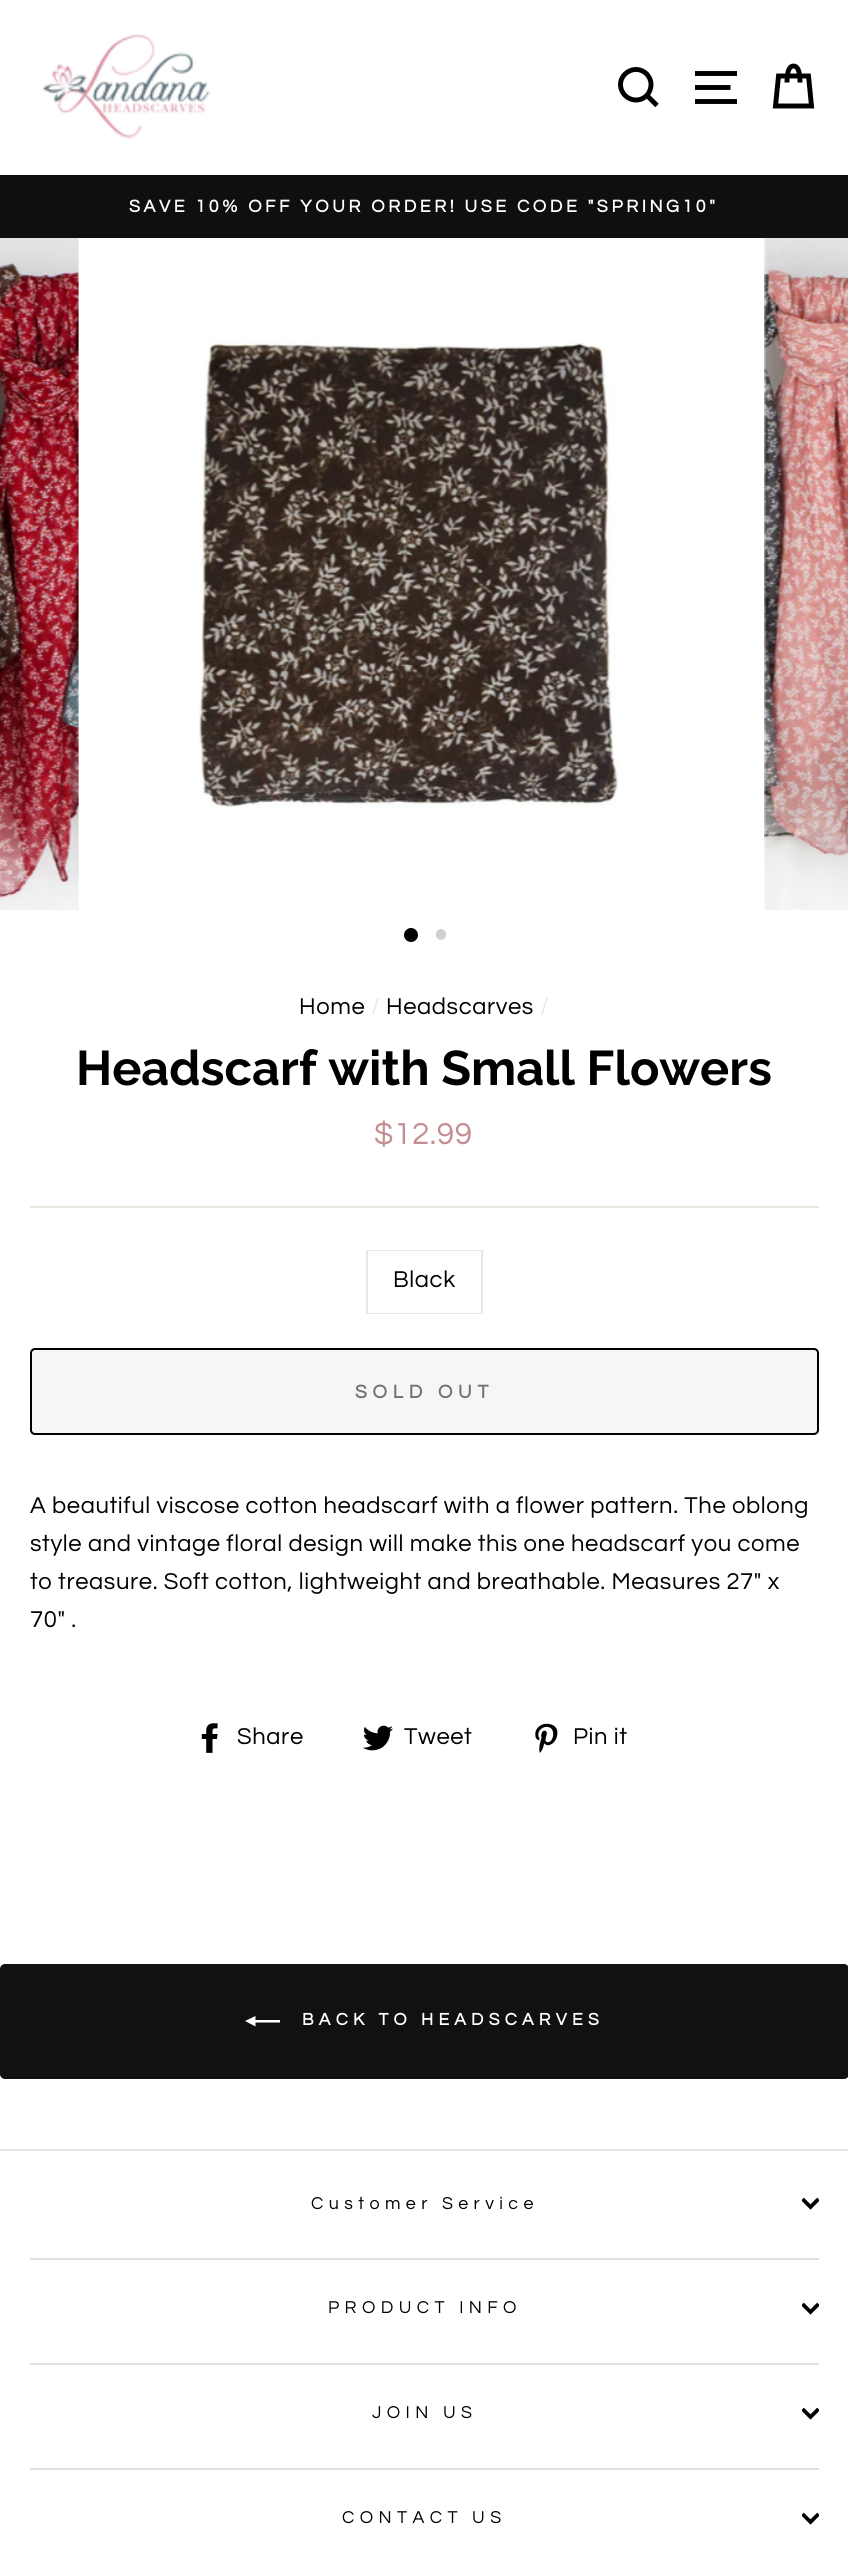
import math
import cairo



def draw_spaced(context, x, y, s, letter, word):
    context.move_to(x, y)
    for ch in s:
        context.show_text(ch)
        context.rel_move_to(letter + word * (ch == ' '), 0)


def rounded_rect(context, x, y, w, h, r):
    context.new_sub_path()
    for i, (u, v) in enumerate([(x + w - r, y + h - r), (x + r, y + h - r), (x + r, y + r), (x + w - r, y + r)]):
        context.arc(u, v, r, i * math.pi / 2, (i + 1) * math.pi / 2)
    context.close_path()


def draw_image(context, path, x, y, w, h):
    context.save()
    context.set_source_surface(cairo.ImageSurface.create_from_png(path), x, y)
    context.rectangle(x, y, w, h)
    context.fill()
    context.restore()


def draw(context):
    context.set_source_rgb(1, 1, 1)
    context.paint()
    draw_image(context, "images/1.png", 42, 34, 169, 105)
    context.new_path()
    context.move_to(651, 84.5)
    context.curve_to(651, 93, 644.5, 100, 636, 100)
    context.curve_to(627.5, 100, 620.5, 93, 620.5, 84.5)
    context.curve_to(620.5, 76.5, 627.5, 69.5, 636, 69.5)
    context.curve_to(644.5, 69.5, 651, 76.5, 651, 84.5)
    context.close_path()
    context.move_to(657, 105.5)
    context.line_to(647, 95.5)
    context.set_source_rgb(0, 0, 0)
    context.set_line_width(4.9)
    context.stroke()
    context.new_path()
    context.move_to(695, 73.5)
    context.line_to(737, 73.5)
    context.move_to(695, 87.5)
    context.line_to(730.5, 87.5)
    context.move_to(695, 101.5)
    context.line_to(737, 101.5)
    context.stroke()
    context.new_path()
    context.move_to(787, 82.5)
    context.curve_to(787, 69.5, 790, 66, 793.5, 66)
    context.curve_to(797, 66, 800, 69.5, 800, 82.5)
    context.move_to(778.5, 76)
    context.line_to(808.5, 76)
    context.line_to(811.5, 106)
    context.line_to(775.5, 106)
    context.close_path()
    context.stroke()
    context.set_source_rgb(15 / 255, 15 / 255, 15 / 255)
    context.rectangle(0, 175, 848, 63)
    context.fill()
    draw_image(context, "images/2.png", 0, 238, 79, 672)
    draw_image(context, "images/3.png", 199, 338, 421, 471)
    draw_image(context, "images/4.png", 764, 238, 84, 672)
    context.set_source_rgb(0, 0, 0)
    context.arc(411, 935, 7, 0, 2 * math.pi)
    context.fill()
    context.set_source_rgb(209 / 255, 209 / 255, 209 / 255)
    rounded_rect(context, 436, 929, 10, 11, 5)
    context.fill()
    context.set_source_rgb(232 / 255, 232 / 255, 225 / 255)
    context.rectangle(30, 1206, 789, 2)
    context.fill()
    context.rectangle(367, 1251, 115, 62)
    context.set_line_width(2)
    context.stroke()
    context.set_source_rgb(1, 1, 1)
    context.rectangle(368, 1251, 113, 62)
    context.fill()
    context.set_source_rgb(246 / 255, 246 / 255, 246 / 255)
    rounded_rect(context, 31, 1349, 787, 85, 4)
    context.fill_preserve()
    context.set_source_rgb(0, 0, 0)
    context.stroke()
    draw_image(context, "images/5.png", 201, 1723, 17, 30)
    draw_image(context, "images/6.png", 363, 1725, 30, 26)
    draw_image(context, "images/7.png", 535, 1723, 23, 30)
    context.set_source_rgb(17 / 255, 17 / 255, 17 / 255)
    rounded_rect(context, 0, 1964, 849, 115, 5)
    context.fill()
    context.set_source_rgb(1, 1, 1)
    context.new_path()
    context.move_to(280, 2020)
    context.line_to(280, 2022.5)
    context.line_to(255.5, 2022.5)
    context.line_to(255.5, 2026.5)
    context.line_to(245, 2021)
    context.line_to(255.5, 2016)
    context.line_to(255.5, 2020)
    context.close_path()
    context.fill()
    context.set_source_rgb(232 / 255, 232 / 255, 225 / 255)
    context.rectangle(0, 2149, 848, 2)
    context.fill()
    context.save()
    context.rectangle(802, 2195, 17, 17)
    context.clip()
    context.new_path()
    context.move_to(802.5, 2199)
    context.line_to(810.5, 2207)
    context.line_to(818.5, 2199)
    context.set_source_rgb(0, 0, 0)
    context.set_line_width(3.8)
    context.stroke()
    context.restore()
    context.set_source_rgb(224 / 255, 224 / 255, 224 / 255)
    context.rectangle(30, 2258, 789, 2)
    context.fill()
    context.save()
    context.rectangle(802, 2300, 17, 17)
    context.clip()
    context.new_path()
    context.move_to(802.5, 2304)
    context.line_to(810.5, 2312)
    context.line_to(818.5, 2304)
    context.set_source_rgb(0, 0, 0)
    context.set_line_width(3.8)
    context.stroke()
    context.restore()
    context.rectangle(30, 2363, 789, 2)
    context.fill()
    context.save()
    context.rectangle(802, 2405, 17, 17)
    context.clip()
    context.new_path()
    context.move_to(802.5, 2409)
    context.line_to(810.5, 2417)
    context.line_to(818.5, 2409)
    context.set_source_rgb(0, 0, 0)
    context.set_line_width(3.8)
    context.stroke()
    context.restore()
    context.rectangle(30, 2468, 789, 2)
    context.fill()
    context.save()
    context.rectangle(802, 2510, 17, 17)
    context.clip()
    context.new_path()
    context.move_to(802.5, 2514)
    context.line_to(810.5, 2522)
    context.line_to(818.5, 2514)
    context.set_source_rgb(0, 0, 0)
    context.set_line_width(3.8)
    context.stroke()
    context.restore()
    context.select_font_face("Questrial", cairo.FontSlant.NORMAL, cairo.FontWeight.BOLD)
    context.set_font_size(17.85)
    context.set_source_rgb(1, 1, 1)
    draw_spaced(context, 129, 212, "SAVE 10% OFF YOUR ORDER! USE CODE \"SPRING10\"", 3.55, 0)
    context.select_font_face("Questrial")
    context.set_font_size(23.8)
    context.set_source_rgb(0, 0, 0)
    draw_spaced(context, 299, 1014, "Home", 0.6, 0)
    context.set_source_rgb(232 / 255, 232 / 255, 225 / 255)
    draw_spaced(context, 371, 1014, "/", 0.6, 0)
    context.set_source_rgb(0, 0, 0)
    draw_spaced(context, 386, 1014, "Headscarves", 0.6, 0)
    context.set_source_rgb(232 / 255, 232 / 255, 225 / 255)
    draw_spaced(context, 540, 1014, "/", 0.6, 0)
    context.select_font_face("Raleway", cairo.FontSlant.NORMAL, cairo.FontWeight.BOLD)
    context.set_font_size(48.6)
    context.set_source_rgb(0, 0, 0)
    context.move_to(76, 1085)
    context.show_text("Headscarf with Small Flowers")
    context.select_font_face("Questrial")
    context.set_font_size(31.5)
    context.set_source_rgb(196 / 255, 141 / 255, 147 / 255)
    draw_spaced(context, 374, 1144, "$12.99", 0.6, 0)
    context.set_font_size(23.8)
    context.set_source_rgb(0, 0, 0)
    draw_spaced(context, 393, 1287, "Black", 0.6, 0)
    context.select_font_face("Questrial", cairo.FontSlant.NORMAL, cairo.FontWeight.BOLD)
    context.set_font_size(19.25)
    context.set_source_rgb(113 / 255, 113 / 255, 113 / 255)
    draw_spaced(context, 355, 1398, "SOLD OUT", 5.75, 0)
    context.select_font_face("Questrial")
    context.set_font_size(23.8)
    context.set_source_rgb(0, 0, 0)
    draw_spaced(context, 30, 1513, "A beautiful viscose cotton headscarf with a flower pattern. The oblong", 0.6, 0)
    draw_spaced(context, 30, 1551, "style and vintage floral design will make this one headscarf you come", 0.6, 0)
    draw_spaced(context, 30, 1589, "to treasure. Soft cotton, lightweight and breathable. Measures 27\" x", 0.6, 0)
    draw_spaced(context, 30, 1627, "70\" .", 0.6, 0)
    draw_spaced(context, 237, 1744, "Share", 0.6, 0)
    draw_spaced(context, 404, 1744, "Tweet", 0.6, 0)
    draw_spaced(context, 573, 1744, "Pin it", 0.6, 0)
    context.select_font_face("Questrial", cairo.FontSlant.NORMAL, cairo.FontWeight.BOLD)
    context.set_font_size(17.5)
    context.set_source_rgb(1, 1, 1)
    draw_spaced(context, 302, 2025, "BACK TO HEADSCARVES", 5.25, 0)
    context.select_font_face("Questrial")
    context.set_font_size(17.85)
    context.set_source_rgb(0, 0, 0)
    draw_spaced(context, 311, 2209, "Customer Service", 5.4, 0)
    draw_spaced(context, 328, 2313, "PRODUCT INFO", 5.4, 0)
    draw_spaced(context, 372, 2418, "JOIN US", 5.4, 0)
    draw_spaced(context, 342, 2523, "CONTACT US", 5.4, 0)


surface = cairo.ImageSurface(cairo.Format.RGB24, 848, 2563)
context = cairo.Context(surface)
options = cairo.FontOptions()
options.set_hint_metrics(cairo.HintMetrics.OFF)
options.set_hint_style(cairo.HintStyle.NONE)
context.set_font_options(options)
context.set_miter_limit(4)
draw(context)
surface.write_to_png("out.png")
